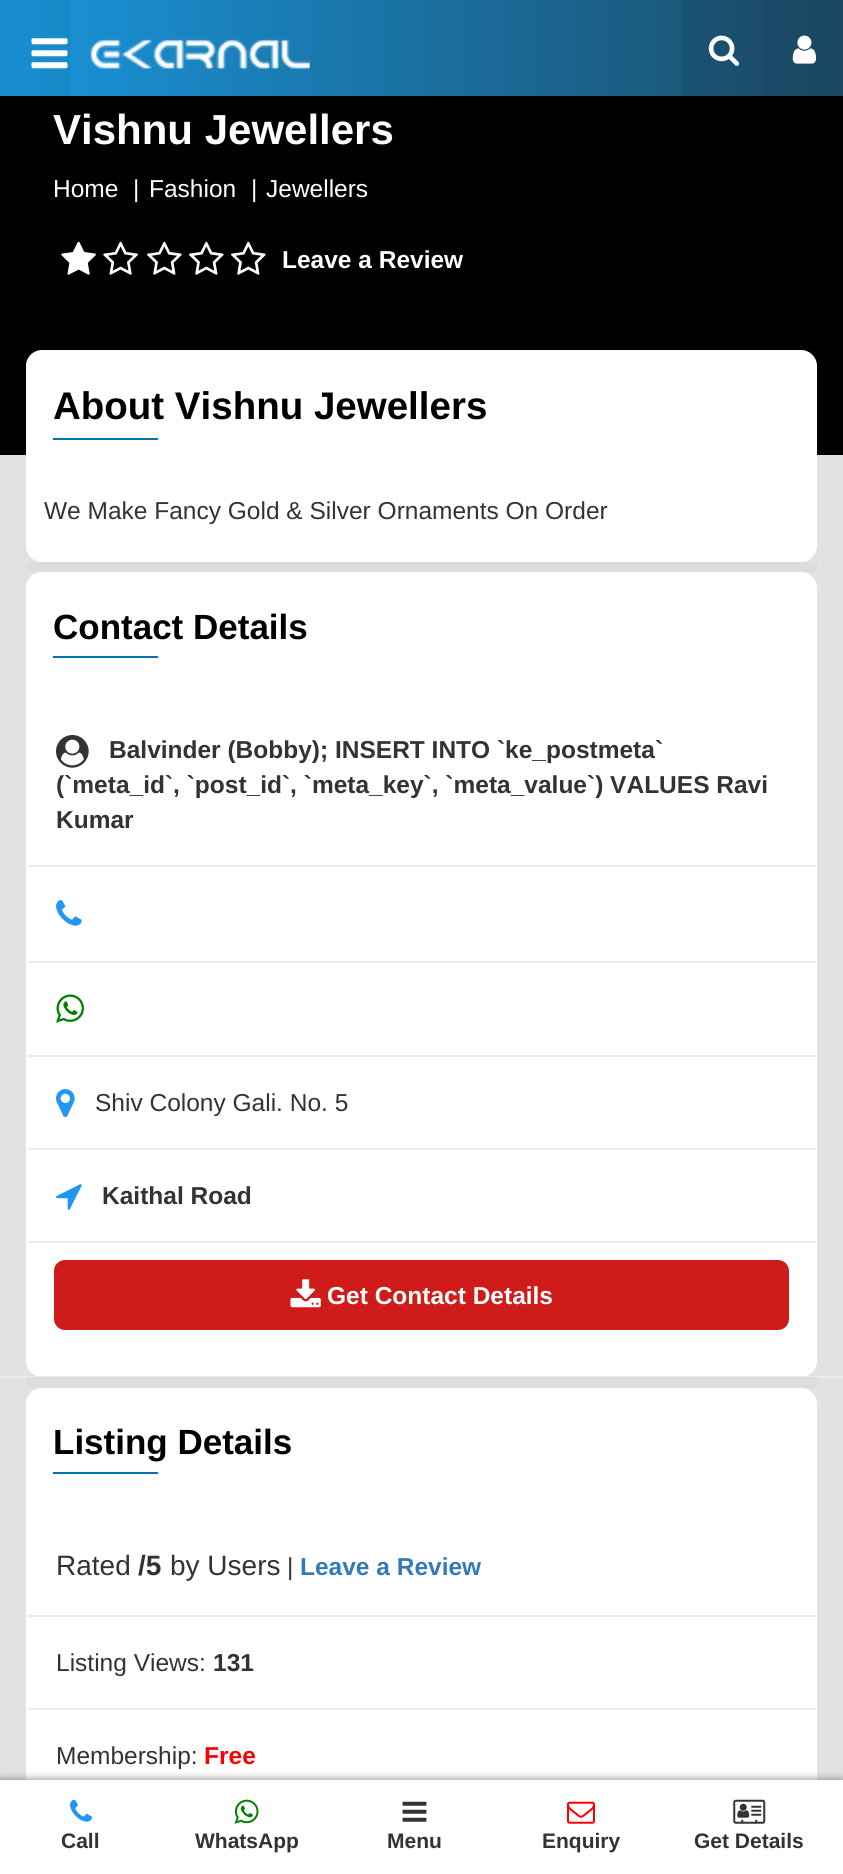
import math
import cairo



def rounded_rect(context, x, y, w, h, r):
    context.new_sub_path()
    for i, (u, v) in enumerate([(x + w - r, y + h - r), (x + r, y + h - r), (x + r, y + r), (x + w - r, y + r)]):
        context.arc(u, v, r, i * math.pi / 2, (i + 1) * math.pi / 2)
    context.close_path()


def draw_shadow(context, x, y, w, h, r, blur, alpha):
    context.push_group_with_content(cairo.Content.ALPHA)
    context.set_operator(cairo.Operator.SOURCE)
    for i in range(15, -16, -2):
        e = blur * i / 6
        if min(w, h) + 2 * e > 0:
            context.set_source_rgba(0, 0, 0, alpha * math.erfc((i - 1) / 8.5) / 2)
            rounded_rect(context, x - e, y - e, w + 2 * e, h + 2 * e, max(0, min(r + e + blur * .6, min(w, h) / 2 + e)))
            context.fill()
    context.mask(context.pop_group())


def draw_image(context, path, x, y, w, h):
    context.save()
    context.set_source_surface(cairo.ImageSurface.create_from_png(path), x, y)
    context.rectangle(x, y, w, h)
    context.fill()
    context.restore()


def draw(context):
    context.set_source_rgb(226 / 255, 226 / 255, 226 / 255)
    context.paint()
    gradient = cairo.LinearGradient(0, 48, 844, 48)
    gradient.add_color_stop_rgba(0, 25 / 255, 149 / 255, 220 / 255, 1)
    gradient.add_color_stop_rgba(1, 28 / 255, 75 / 255, 102 / 255, 1)
    context.set_source(gradient)
    context.rectangle(70, 0, 611, 96)
    context.fill()
    gradient = cairo.LinearGradient(0, 48, 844, 48)
    gradient.add_color_stop_rgba(0, 24 / 255, 142 / 255, 209 / 255, 1)
    gradient.add_color_stop_rgba(1, 27 / 255, 71 / 255, 97 / 255, 1)
    context.set_source(gradient)
    context.rectangle(0, 0, 70, 96)
    context.fill()
    gradient = cairo.LinearGradient(0, 48, 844, 48)
    gradient.add_color_stop_rgba(0, 23 / 255, 139 / 255, 205 / 255, 1)
    gradient.add_color_stop_rgba(1, 26 / 255, 70 / 255, 95 / 255, 1)
    context.set_source(gradient)
    context.rectangle(768, 0, 75, 96)
    context.fill()
    context.rectangle(681, 0, 84, 96)
    context.fill()
    gradient = cairo.LinearGradient(0, 48, 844, 48)
    gradient.add_color_stop_rgba(0, 21 / 255, 129 / 255, 191 / 255, 1)
    gradient.add_color_stop_rgba(1, 24 / 255, 65 / 255, 88 / 255, 1)
    context.set_source(gradient)
    context.rectangle(765, 0, 3, 96)
    context.fill()
    draw_image(context, "images/1.png", 31, 38, 37, 31)
    draw_image(context, "images/2.png", 90, 39, 220, 30)
    draw_image(context, "images/3.png", 708, 35, 32, 31)
    draw_image(context, "images/4.png", 792, 35, 25, 29)
    context.set_source_rgb(0, 0, 0)
    context.rectangle(0, 96, 843, 359)
    context.fill()
    draw_image(context, "images/5.png", 61, 241, 35, 34)
    draw_image(context, "images/6.png", 103, 241, 35, 34)
    draw_image(context, "images/7.png", 147, 241, 35, 34)
    draw_image(context, "images/7.png", 189, 241, 35, 34)
    draw_image(context, "images/7.png", 231, 241, 35, 34)
    context.set_source_rgb(1, 1, 1)
    rounded_rect(context, 26, 350, 791, 212, 16)
    context.fill()
    context.set_source_rgb(6 / 255, 114 / 255, 177 / 255)
    context.rectangle(53, 438, 105, 2)
    context.fill()
    context.set_source_rgb(221 / 255, 221 / 255, 221 / 255)
    context.rectangle(26, 562, 791, 10)
    context.fill()
    context.set_source_rgb(1, 1, 1)
    rounded_rect(context, 26, 572, 791, 805, 16)
    context.fill()
    context.set_source_rgb(6 / 255, 114 / 255, 177 / 255)
    context.rectangle(53, 656, 105, 2)
    context.fill()
    context.set_source_rgb(236 / 255, 236 / 255, 236 / 255)
    context.rectangle(0, 1376, 843, 2)
    context.fill()
    context.rectangle(28, 865, 788, 2)
    context.fill()
    draw_image(context, "images/8.png", 56, 735, 33, 33)
    context.rectangle(28, 961, 788, 2)
    context.fill()
    draw_image(context, "images/9.png", 56, 900, 26, 26)
    context.rectangle(28, 1055, 788, 2)
    context.fill()
    draw_image(context, "images/10.png", 56, 994, 28, 29)
    context.rectangle(28, 1148, 788, 2)
    context.fill()
    draw_image(context, "images/11.png", 56, 1089, 19, 29)
    context.rectangle(28, 1241, 788, 2)
    context.fill()
    draw_image(context, "images/12.png", 56, 1184, 26, 26)
    context.set_source_rgb(208 / 255, 27 / 255, 27 / 255)
    rounded_rect(context, 54, 1260, 735, 70, 11)
    context.fill()
    draw_image(context, "images/13.png", 290, 1279, 31, 29)
    context.set_source_rgb(221 / 255, 221 / 255, 221 / 255)
    context.rectangle(26, 1377, 791, 11)
    context.fill()
    context.set_source_rgb(1, 1, 1)
    rounded_rect(context, 26, 1388, 791, 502, 16)
    context.fill()
    context.set_source_rgb(6 / 255, 114 / 255, 177 / 255)
    context.rectangle(53, 1472, 105, 2)
    context.fill()
    context.set_source_rgb(236 / 255, 236 / 255, 236 / 255)
    context.rectangle(28, 1615, 788, 2)
    context.fill()
    context.rectangle(28, 1708, 788, 2)
    context.fill()
    context.set_source_rgb(128 / 255, 128 / 255, 128 / 255)
    draw_shadow(context, 0, 1780, 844, 94, 0, 4.5, 1)
    context.set_source_rgb(1, 1, 1)
    context.rectangle(0, 1780, 843, 94)
    context.fill()
    draw_image(context, "images/14.png", 70, 1799, 22, 23)
    draw_image(context, "images/15.png", 234, 1799, 25, 25)
    draw_image(context, "images/16.png", 402, 1801, 25, 21)
    draw_image(context, "images/17.png", 567, 1801, 28, 23)
    draw_image(context, "images/18.png", 733, 1799, 33, 25)
    context.select_font_face("Liberation Sans", cairo.FontSlant.NORMAL, cairo.FontWeight.BOLD)
    context.set_font_size(42)
    context.move_to(53, 144)
    context.show_text("Vishnu Jewellers")
    context.select_font_face("Liberation Sans")
    context.set_font_size(24.5)
    context.move_to(53, 197)
    context.show_text("Home")
    context.move_to(133, 197)
    context.show_text("|")
    context.move_to(149, 197)
    context.show_text("Fashion")
    context.move_to(251, 197)
    context.show_text("|")
    context.move_to(266, 197)
    context.show_text("Jewellers")
    context.select_font_face("Liberation Sans", cairo.FontSlant.NORMAL, cairo.FontWeight.BOLD)
    context.move_to(282, 268)
    context.show_text("Leave a Review")
    context.set_font_size(38.5)
    context.set_source_rgb(0, 0, 0)
    context.move_to(53, 419)
    context.show_text("About Vishnu Jewellers")
    context.select_font_face("Liberation Sans")
    context.set_font_size(24.5)
    context.set_source_rgb(51 / 255, 51 / 255, 51 / 255)
    context.move_to(44, 519)
    context.show_text("We Make Fancy Gold & Silver Ornaments On Order")
    context.select_font_face("Liberation Sans", cairo.FontSlant.NORMAL, cairo.FontWeight.BOLD)
    context.set_font_size(35)
    context.set_source_rgb(0, 0, 0)
    context.move_to(53, 639)
    context.show_text("Contact Details")
    context.set_font_size(24.5)
    context.set_source_rgb(51 / 255, 51 / 255, 51 / 255)
    context.move_to(109, 758)
    context.show_text("Balvinder (Bobby); INSERT INTO `ke_postmeta`")
    context.move_to(56, 793)
    context.show_text("(`meta_id`, `post_id`, `meta_key`, `meta_value`) VALUES Ravi")
    context.move_to(56, 828)
    context.show_text("Kumar")
    context.select_font_face("Liberation Sans")
    context.move_to(95, 1111)
    context.show_text("Shiv Colony Gali. No. 5")
    context.select_font_face("Liberation Sans", cairo.FontSlant.NORMAL, cairo.FontWeight.BOLD)
    context.move_to(102, 1204)
    context.show_text("Kaithal Road")
    context.set_source_rgb(1, 1, 1)
    context.move_to(327, 1304)
    context.show_text("Get Contact Details")
    context.set_font_size(35)
    context.set_source_rgb(0, 0, 0)
    context.move_to(53, 1454)
    context.show_text("Listing Details")
    context.select_font_face("Liberation Sans")
    context.set_font_size(28)
    context.set_source_rgb(51 / 255, 51 / 255, 51 / 255)
    context.move_to(56, 1575)
    context.show_text("Rated")
    context.select_font_face("Liberation Sans", cairo.FontSlant.NORMAL, cairo.FontWeight.BOLD)
    context.move_to(138, 1575)
    context.show_text("/5")
    context.select_font_face("Liberation Sans")
    context.move_to(170, 1575)
    context.show_text("by Users")
    context.set_font_size(24.5)
    context.move_to(287, 1575)
    context.show_text("|")
    context.select_font_face("Liberation Sans", cairo.FontSlant.NORMAL, cairo.FontWeight.BOLD)
    context.set_source_rgb(51 / 255, 122 / 255, 183 / 255)
    context.move_to(300, 1575)
    context.show_text("Leave a Review")
    context.select_font_face("Liberation Sans")
    context.set_source_rgb(51 / 255, 51 / 255, 51 / 255)
    context.move_to(56, 1671)
    context.show_text("Listing Views:")
    context.select_font_face("Liberation Sans", cairo.FontSlant.NORMAL, cairo.FontWeight.BOLD)
    context.move_to(213, 1671)
    context.show_text("131")
    context.select_font_face("Liberation Sans")
    context.move_to(56, 1764)
    context.show_text("Membership:")
    context.select_font_face("Liberation Sans", cairo.FontSlant.NORMAL, cairo.FontWeight.BOLD)
    context.set_source_rgb(1, 0, 0)
    context.move_to(204, 1764)
    context.show_text("Free")
    context.set_font_size(21)
    context.set_source_rgb(51 / 255, 51 / 255, 51 / 255)
    context.move_to(61, 1848)
    context.show_text("Call")
    context.move_to(195, 1848)
    context.show_text("WhatsApp")
    context.move_to(387, 1848)
    context.show_text("Menu")
    context.move_to(542, 1848)
    context.show_text("Enquiry")
    context.move_to(694, 1848)
    context.show_text("Get Details")


surface = cairo.ImageSurface(cairo.Format.RGB24, 843, 1874)
context = cairo.Context(surface)
options = cairo.FontOptions()
options.set_hint_metrics(cairo.HintMetrics.OFF)
options.set_hint_style(cairo.HintStyle.NONE)
context.set_font_options(options)
context.set_miter_limit(4)
draw(context)
surface.write_to_png("out.png")
